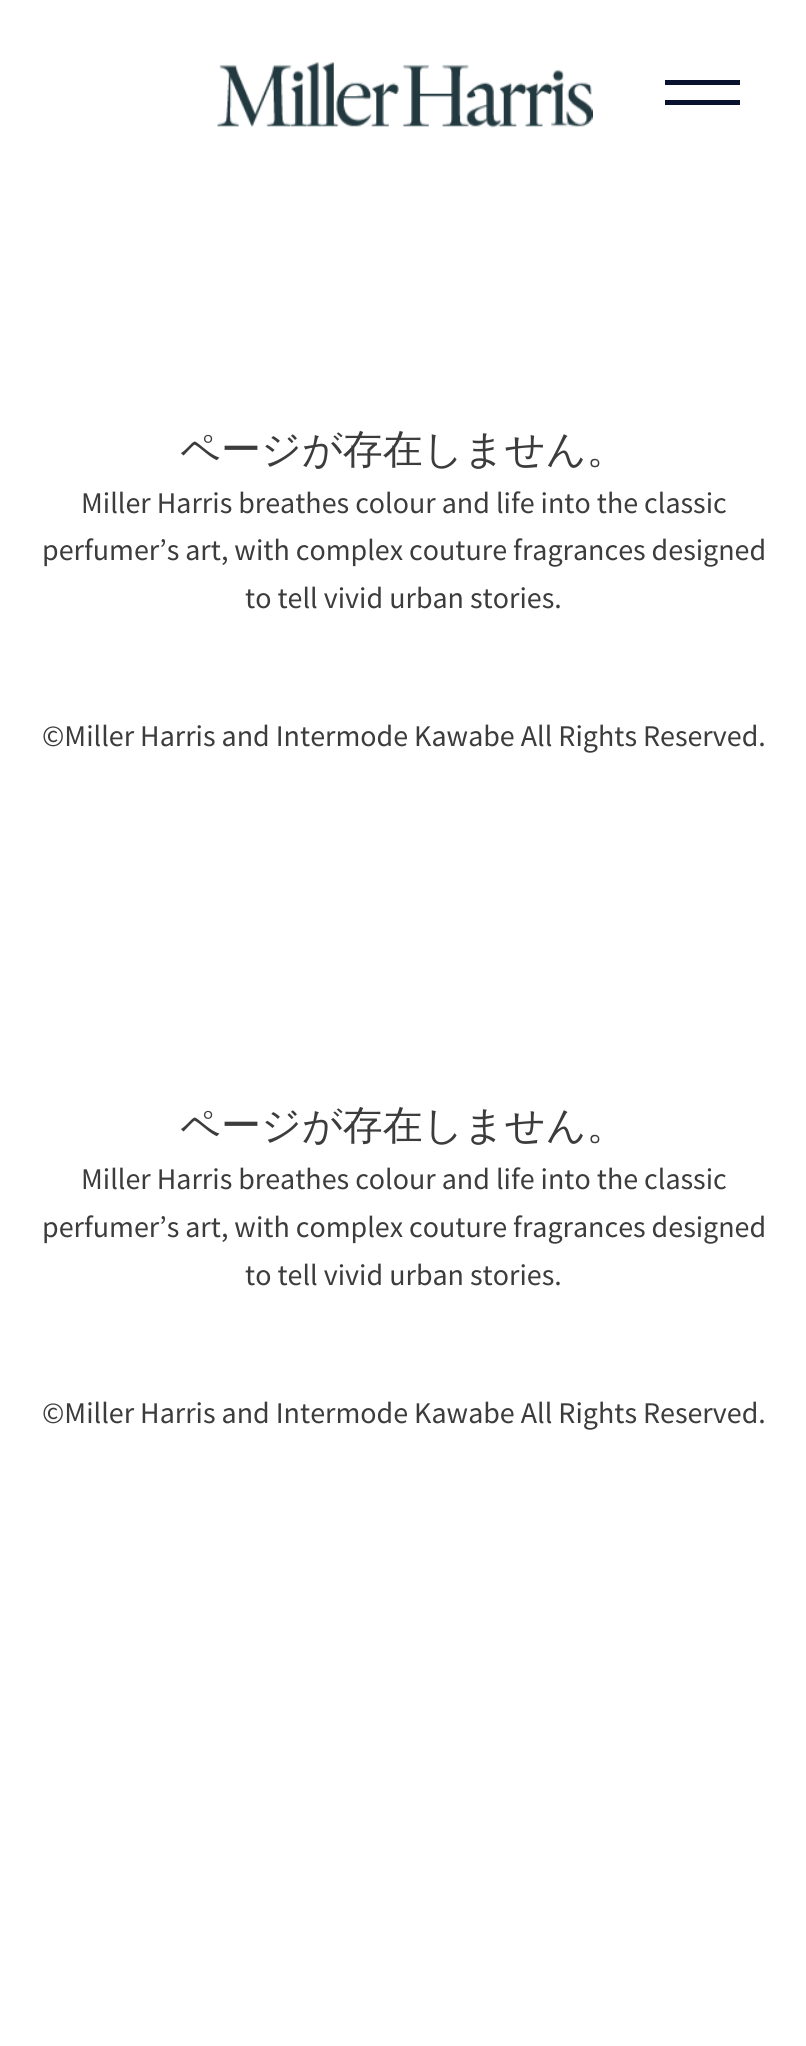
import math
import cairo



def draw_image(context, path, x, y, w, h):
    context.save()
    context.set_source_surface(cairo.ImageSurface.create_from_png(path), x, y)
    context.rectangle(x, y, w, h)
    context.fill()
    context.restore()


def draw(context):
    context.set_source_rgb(1, 1, 1)
    context.paint()
    context.set_source_rgb(8 / 255, 18 / 255, 46 / 255)
    context.rectangle(665, 80, 75, 5)
    context.fill()
    context.rectangle(665, 100, 75, 5)
    context.fill()
    draw_image(context, "images/1.png", 217, 62, 376, 66)
    context.select_font_face("WenQuanYi Zen Hei Medium")
    context.set_font_size(40)
    context.set_source_rgb(60 / 255, 60 / 255, 60 / 255)
    context.move_to(180, 463)
    context.show_text("ページが存在しません。")
    context.select_font_face("Source Sans Pro")
    context.set_font_size(30)
    context.move_to(81, 513)
    context.show_text("Miller Harris breathes colour and life into the classic")
    context.move_to(42, 560)
    context.show_text("perfumer’s art, with complex couture fragrances designed")
    context.move_to(245, 608)
    context.show_text("to tell vivid urban stories.")
    context.move_to(42, 746)
    context.show_text("©Miller Harris and Intermode Kawabe All Rights Reserved.")
    context.select_font_face("WenQuanYi Zen Hei Medium")
    context.set_font_size(40)
    context.move_to(180, 1139)
    context.show_text("ページが存在しません。")
    context.select_font_face("Source Sans Pro")
    context.set_font_size(30)
    context.move_to(81, 1189)
    context.show_text("Miller Harris breathes colour and life into the classic")
    context.move_to(42, 1237)
    context.show_text("perfumer’s art, with complex couture fragrances designed")
    context.move_to(245, 1285)
    context.show_text("to tell vivid urban stories.")
    context.move_to(42, 1423)
    context.show_text("©Miller Harris and Intermode Kawabe All Rights Reserved.")


surface = cairo.ImageSurface(cairo.Format.RGB24, 806, 2046)
context = cairo.Context(surface)
options = cairo.FontOptions()
options.set_hint_metrics(cairo.HintMetrics.OFF)
options.set_hint_style(cairo.HintStyle.NONE)
context.set_font_options(options)
context.set_miter_limit(4)
draw(context)
surface.write_to_png("out.png")
